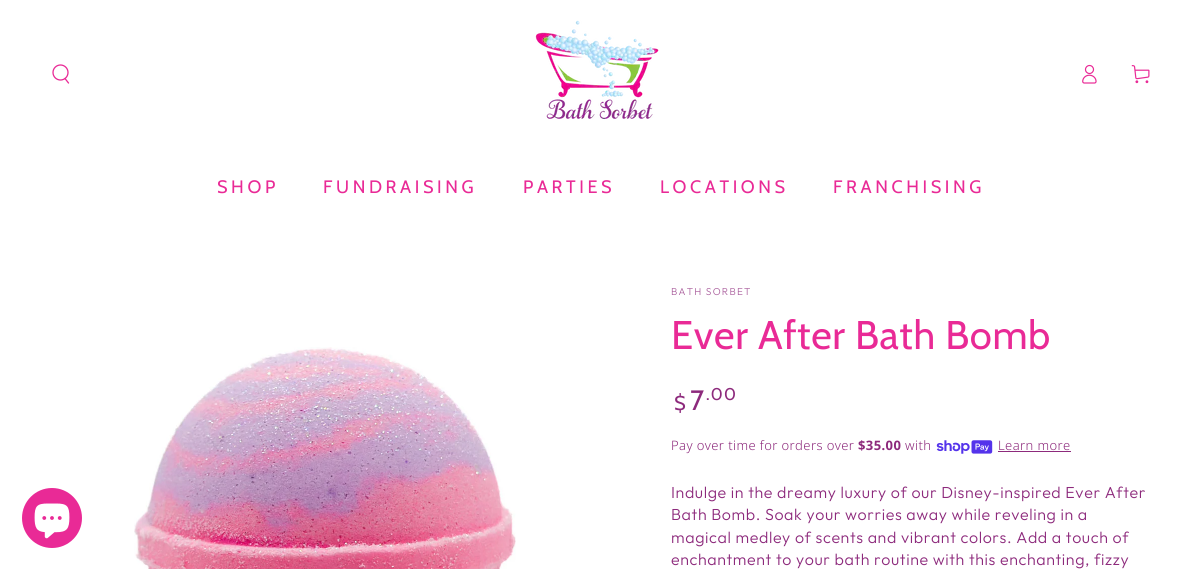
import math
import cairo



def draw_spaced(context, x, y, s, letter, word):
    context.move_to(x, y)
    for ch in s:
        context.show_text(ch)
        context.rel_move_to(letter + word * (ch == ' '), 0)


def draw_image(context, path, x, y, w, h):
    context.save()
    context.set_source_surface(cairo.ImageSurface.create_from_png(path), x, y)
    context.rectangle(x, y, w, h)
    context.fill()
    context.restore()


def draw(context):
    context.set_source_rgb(1, 1, 1)
    context.paint()
    context.set_source_rgb(233 / 255, 42 / 255, 150 / 255)
    context.arc(52, 518, 30, 0, 2 * math.pi)
    context.fill()
    draw_image(context, "images/1.png", 34, 503, 36, 36)
    context.arc(60.5, 72.5, 7.5, 0, 2 * math.pi)
    context.set_line_width(1.3)
    context.stroke()
    context.new_path()
    context.move_to(65, 78.5)
    context.line_to(68.5, 83)
    context.set_line_cap(cairo.LineCap.ROUND)
    context.stroke()
    draw_image(context, "images/2.png", 535, 20, 124, 100)
    draw_image(context, "images/3.png", 1082, 64, 15, 20)
    draw_image(context, "images/4.png", 1131, 65, 19, 19)
    draw_image(context, "images/5.png", 134, 347, 382, 222)
    draw_image(context, "images/6.png", 936, 440, 57, 14)
    context.set_source_rgb(141 / 255, 42 / 255, 124 / 255)
    context.rectangle(998, 451, 73, 1)
    context.fill()
    context.select_font_face("Cabin")
    context.set_font_size(18)
    context.set_source_rgb(233 / 255, 42 / 255, 150 / 255)
    draw_spaced(context, 217, 193, "SHOP", 3.6, 0)
    draw_spaced(context, 323, 193, "FUNDRAISING", 3.6, 0)
    draw_spaced(context, 523, 193, "PARTIES", 3.6, 0)
    draw_spaced(context, 660, 193, "LOCATIONS", 3.6, 0)
    draw_spaced(context, 833, 193, "FRANCHISING", 3.6, 0)
    context.select_font_face("Outfit Light")
    context.set_font_size(10)
    context.set_source_rgb(170 / 255, 95 / 255, 157 / 255)
    draw_spaced(context, 671, 295, "BATH SORBET", 1.25, 0)
    context.select_font_face("Cabin")
    context.set_font_size(40)
    context.set_source_rgb(233 / 255, 42 / 255, 150 / 255)
    draw_spaced(context, 671, 349, "Ever After Bath Bomb", 0.6, 0)
    context.set_font_size(20)
    context.set_source_rgb(141 / 255, 42 / 255, 124 / 255)
    draw_spaced(context, 674, 410, "$", 1.25, 0)
    context.set_font_size(28)
    draw_spaced(context, 690, 410, "7", 1.25, 0)
    context.set_font_size(17)
    draw_spaced(context, 706, 400, ".00", 1.25, 0)
    context.select_font_face("Noto Sans Light")
    context.set_font_size(13)
    draw_spaced(context, 671, 450, "Pay over time for orders over", 0.4, 0)
    context.select_font_face("Noto Sans", cairo.FontSlant.NORMAL, cairo.FontWeight.BOLD)
    draw_spaced(context, 858, 450, "$35.00", 0.4, 0)
    context.select_font_face("Noto Sans Light")
    draw_spaced(context, 905, 450, "with", 0.4, 0)
    draw_spaced(context, 998, 450, "Learn more", 0.4, 0)
    context.select_font_face("Outfit Light")
    context.set_font_size(16)
    draw_spaced(context, 671, 498, "Indulge in the dreamy luxury of our Disney-inspired Ever After", 0.6, 0)
    draw_spaced(context, 671, 520, "Bath Bomb. Soak your worries away while reveling in a", 0.6, 0)
    draw_spaced(context, 671, 543, "magical medley of scents and vibrant colors. Add a touch of", 0.6, 0)
    draw_spaced(context, 671, 565, "enchantment to your bath routine with this enchanting, fizzy", 0.6, 0)


surface = cairo.ImageSurface(cairo.Format.RGB24, 1202, 569)
context = cairo.Context(surface)
options = cairo.FontOptions()
options.set_hint_metrics(cairo.HintMetrics.OFF)
options.set_hint_style(cairo.HintStyle.NONE)
context.set_font_options(options)
context.set_miter_limit(4)
draw(context)
surface.write_to_png("out.png")
